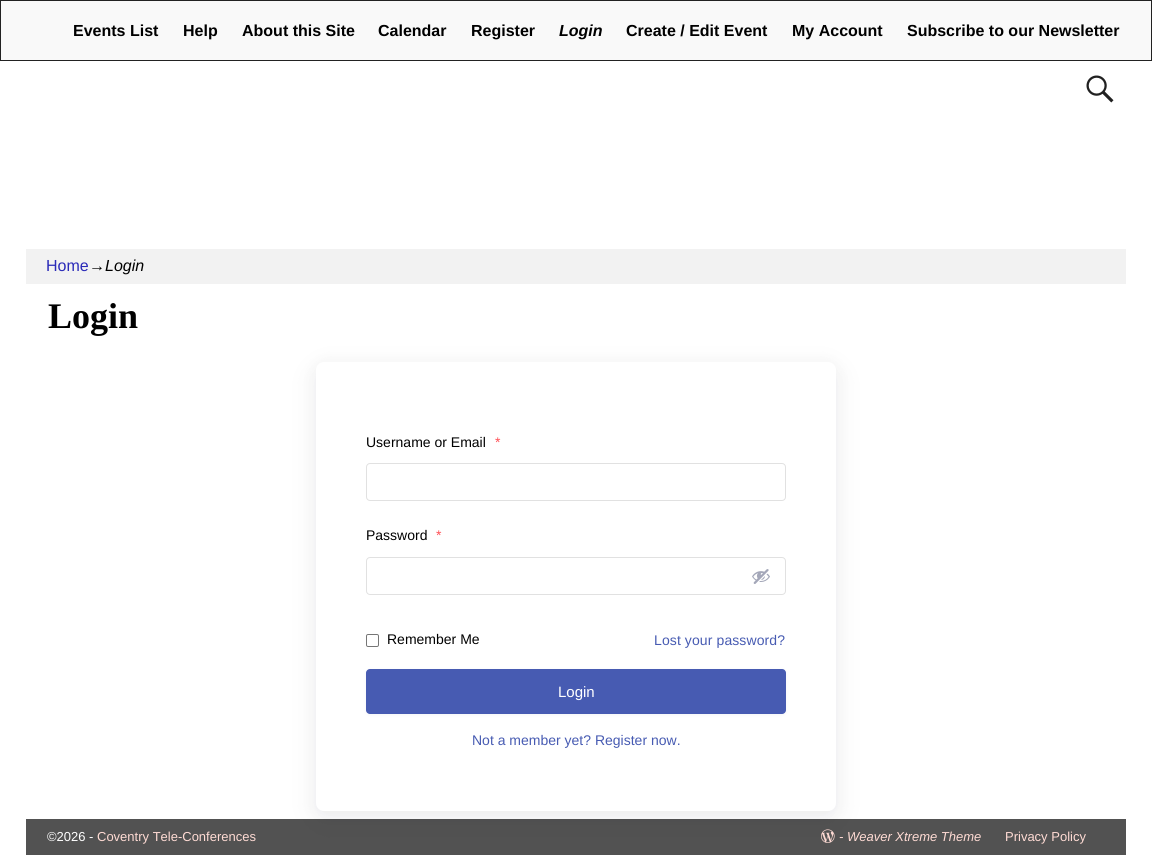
import math
import cairo



def draw_spaced(context, x, y, s, letter, word):
    context.move_to(x, y)
    for ch in s:
        context.show_text(ch)
        context.rel_move_to(letter + word * (ch == ' '), 0)


def rounded_rect(context, x, y, w, h, r):
    context.new_sub_path()
    for i, (u, v) in enumerate([(x + w - r, y + h - r), (x + r, y + h - r), (x + r, y + r), (x + w - r, y + r)]):
        context.arc(u, v, r, i * math.pi / 2, (i + 1) * math.pi / 2)
    context.close_path()


def draw_shadow(context, x, y, w, h, r, blur, alpha):
    context.push_group_with_content(cairo.Content.ALPHA)
    context.set_operator(cairo.Operator.SOURCE)
    for i in range(15, -16, -2):
        e = blur * i / 6
        if min(w, h) + 2 * e > 0:
            context.set_source_rgba(0, 0, 0, alpha * math.erfc((i - 1) / 8.5) / 2)
            rounded_rect(context, x - e, y - e, w + 2 * e, h + 2 * e, max(0, min(r + e + blur * .6, min(w, h) / 2 + e)))
            context.fill()
    context.mask(context.pop_group())


def draw_image(context, path, x, y, w, h):
    context.save()
    context.set_source_surface(cairo.ImageSurface.create_from_png(path), x, y)
    context.rectangle(x, y, w, h)
    context.fill()
    context.restore()


def draw(context):
    context.set_source_rgb(1, 1, 1)
    context.paint()
    context.set_source_rgb(249 / 255, 249 / 255, 249 / 255)
    context.rectangle(0.5, 0.5, 1151, 60)
    context.fill_preserve()
    context.set_source_rgb(34 / 255, 34 / 255, 34 / 255)
    context.set_line_width(1)
    context.stroke()
    draw_image(context, "images/1.png", 1086, 75, 28, 28)
    context.set_source_rgb(242 / 255, 242 / 255, 242 / 255)
    context.rectangle(26, 249, 1100, 35)
    context.fill()
    context.set_source_rgb(82 / 255, 82 / 255, 82 / 255)
    context.rectangle(26, 819, 1100, 36)
    context.fill()
    draw_image(context, "images/3.png", 821, 829, 14, 14)
    context.set_source_rgb(17 / 255, 17 / 255, 26 / 255)
    draw_shadow(context, 316, 370, 520, 449, 8, 16, 0.05)
    draw_shadow(context, 316, 366, 520, 449, 8, 8, 0.05)
    context.set_source_rgb(1, 1, 1)
    rounded_rect(context, 316, 362, 520, 449, 8)
    context.fill()
    rounded_rect(context, 366.5, 463.5, 419, 37, 3.5)
    context.set_source_rgb(225 / 255, 225 / 255, 225 / 255)
    context.stroke()
    rounded_rect(context, 366.5, 557.5, 419, 37, 3.5)
    context.stroke()
    draw_image(context, "images/2.png", 752, 569, 18, 15)
    rounded_rect(context, 366.5, 634.5, 12, 12, 1.5)
    context.set_source_rgb(118 / 255, 118 / 255, 118 / 255)
    context.stroke()
    context.set_source_rgb(182 / 255, 187 / 255, 207 / 255)
    draw_shadow(context, 366, 670, 420, 45, 4, 1.5, 0.15)
    context.set_source_rgb(71 / 255, 91 / 255, 178 / 255)
    rounded_rect(context, 366, 669, 420, 45, 4)
    context.fill()
    context.select_font_face("Liberation Sans", cairo.FontSlant.NORMAL, cairo.FontWeight.BOLD)
    context.set_font_size(16)
    context.set_source_rgb(0, 0, 0)
    context.move_to(73, 36)
    context.show_text("Events List")
    context.move_to(183, 36)
    context.show_text("Help")
    context.move_to(242, 36)
    context.show_text("About this Site")
    context.move_to(378, 36)
    context.show_text("Calendar")
    context.move_to(471, 36)
    context.show_text("Register")
    context.select_font_face("Liberation Sans", cairo.FontSlant.ITALIC, cairo.FontWeight.BOLD)
    context.move_to(559, 36)
    context.show_text("Login")
    context.select_font_face("Liberation Sans", cairo.FontSlant.NORMAL, cairo.FontWeight.BOLD)
    context.move_to(626, 36)
    context.show_text("Create / Edit Event")
    context.move_to(792, 36)
    context.show_text("My Account")
    context.move_to(907, 36)
    context.show_text("Subscribe to our Newsletter")
    context.select_font_face("Liberation Sans")
    context.set_source_rgb(42 / 255, 42 / 255, 184 / 255)
    context.move_to(46, 271)
    context.show_text("Home")
    context.set_source_rgb(0, 0, 0)
    context.move_to(89, 271)
    context.show_text("→")
    context.select_font_face("Liberation Sans", cairo.FontSlant.ITALIC)
    context.move_to(105, 271)
    context.show_text("Login")
    context.select_font_face("Liberation Serif", cairo.FontSlant.NORMAL, cairo.FontWeight.BOLD)
    context.set_font_size(36)
    context.move_to(48, 328)
    context.show_text("Login")
    context.select_font_face("Liberation Sans")
    context.set_font_size(14)
    context.move_to(366, 447)
    context.show_text("Username or Email")
    context.set_source_rgb(1, 79 / 255, 85 / 255)
    context.move_to(495, 447)
    context.show_text("*")
    context.set_source_rgb(0, 0, 0)
    context.move_to(366, 540)
    context.show_text("Password")
    context.set_source_rgb(1, 79 / 255, 85 / 255)
    context.move_to(436, 540)
    context.show_text("*")
    context.set_source_rgb(0, 0, 0)
    context.move_to(387, 644)
    context.show_text("Remember Me")
    context.set_source_rgb(71 / 255, 91 / 255, 178 / 255)
    draw_spaced(context, 654, 645, "Lost your password?", 0.1, 0)
    context.set_font_size(15)
    context.set_source_rgb(1, 1, 1)
    context.move_to(558, 697)
    context.show_text("Login")
    context.set_font_size(14)
    context.set_source_rgb(71 / 255, 91 / 255, 178 / 255)
    context.move_to(472, 745)
    context.show_text("Not a member yet? Register now.")
    context.set_font_size(13)
    context.set_source_rgb(1, 1, 1)
    context.move_to(47, 841)
    context.show_text("©2026 -")
    context.set_source_rgb(1, 219 / 255, 212 / 255)
    context.move_to(97, 841)
    context.show_text("Coventry Tele-Conferences")
    context.select_font_face("Liberation Sans", cairo.FontSlant.ITALIC)
    context.move_to(839, 841)
    context.show_text("- Weaver Xtreme Theme")
    context.select_font_face("Liberation Sans")
    context.move_to(1005, 841)
    context.show_text("Privacy Policy")


surface = cairo.ImageSurface(cairo.Format.RGB24, 1152, 864)
context = cairo.Context(surface)
options = cairo.FontOptions()
options.set_hint_metrics(cairo.HintMetrics.OFF)
options.set_hint_style(cairo.HintStyle.NONE)
context.set_font_options(options)
context.set_miter_limit(4)
draw(context)
surface.write_to_png("out.png")
